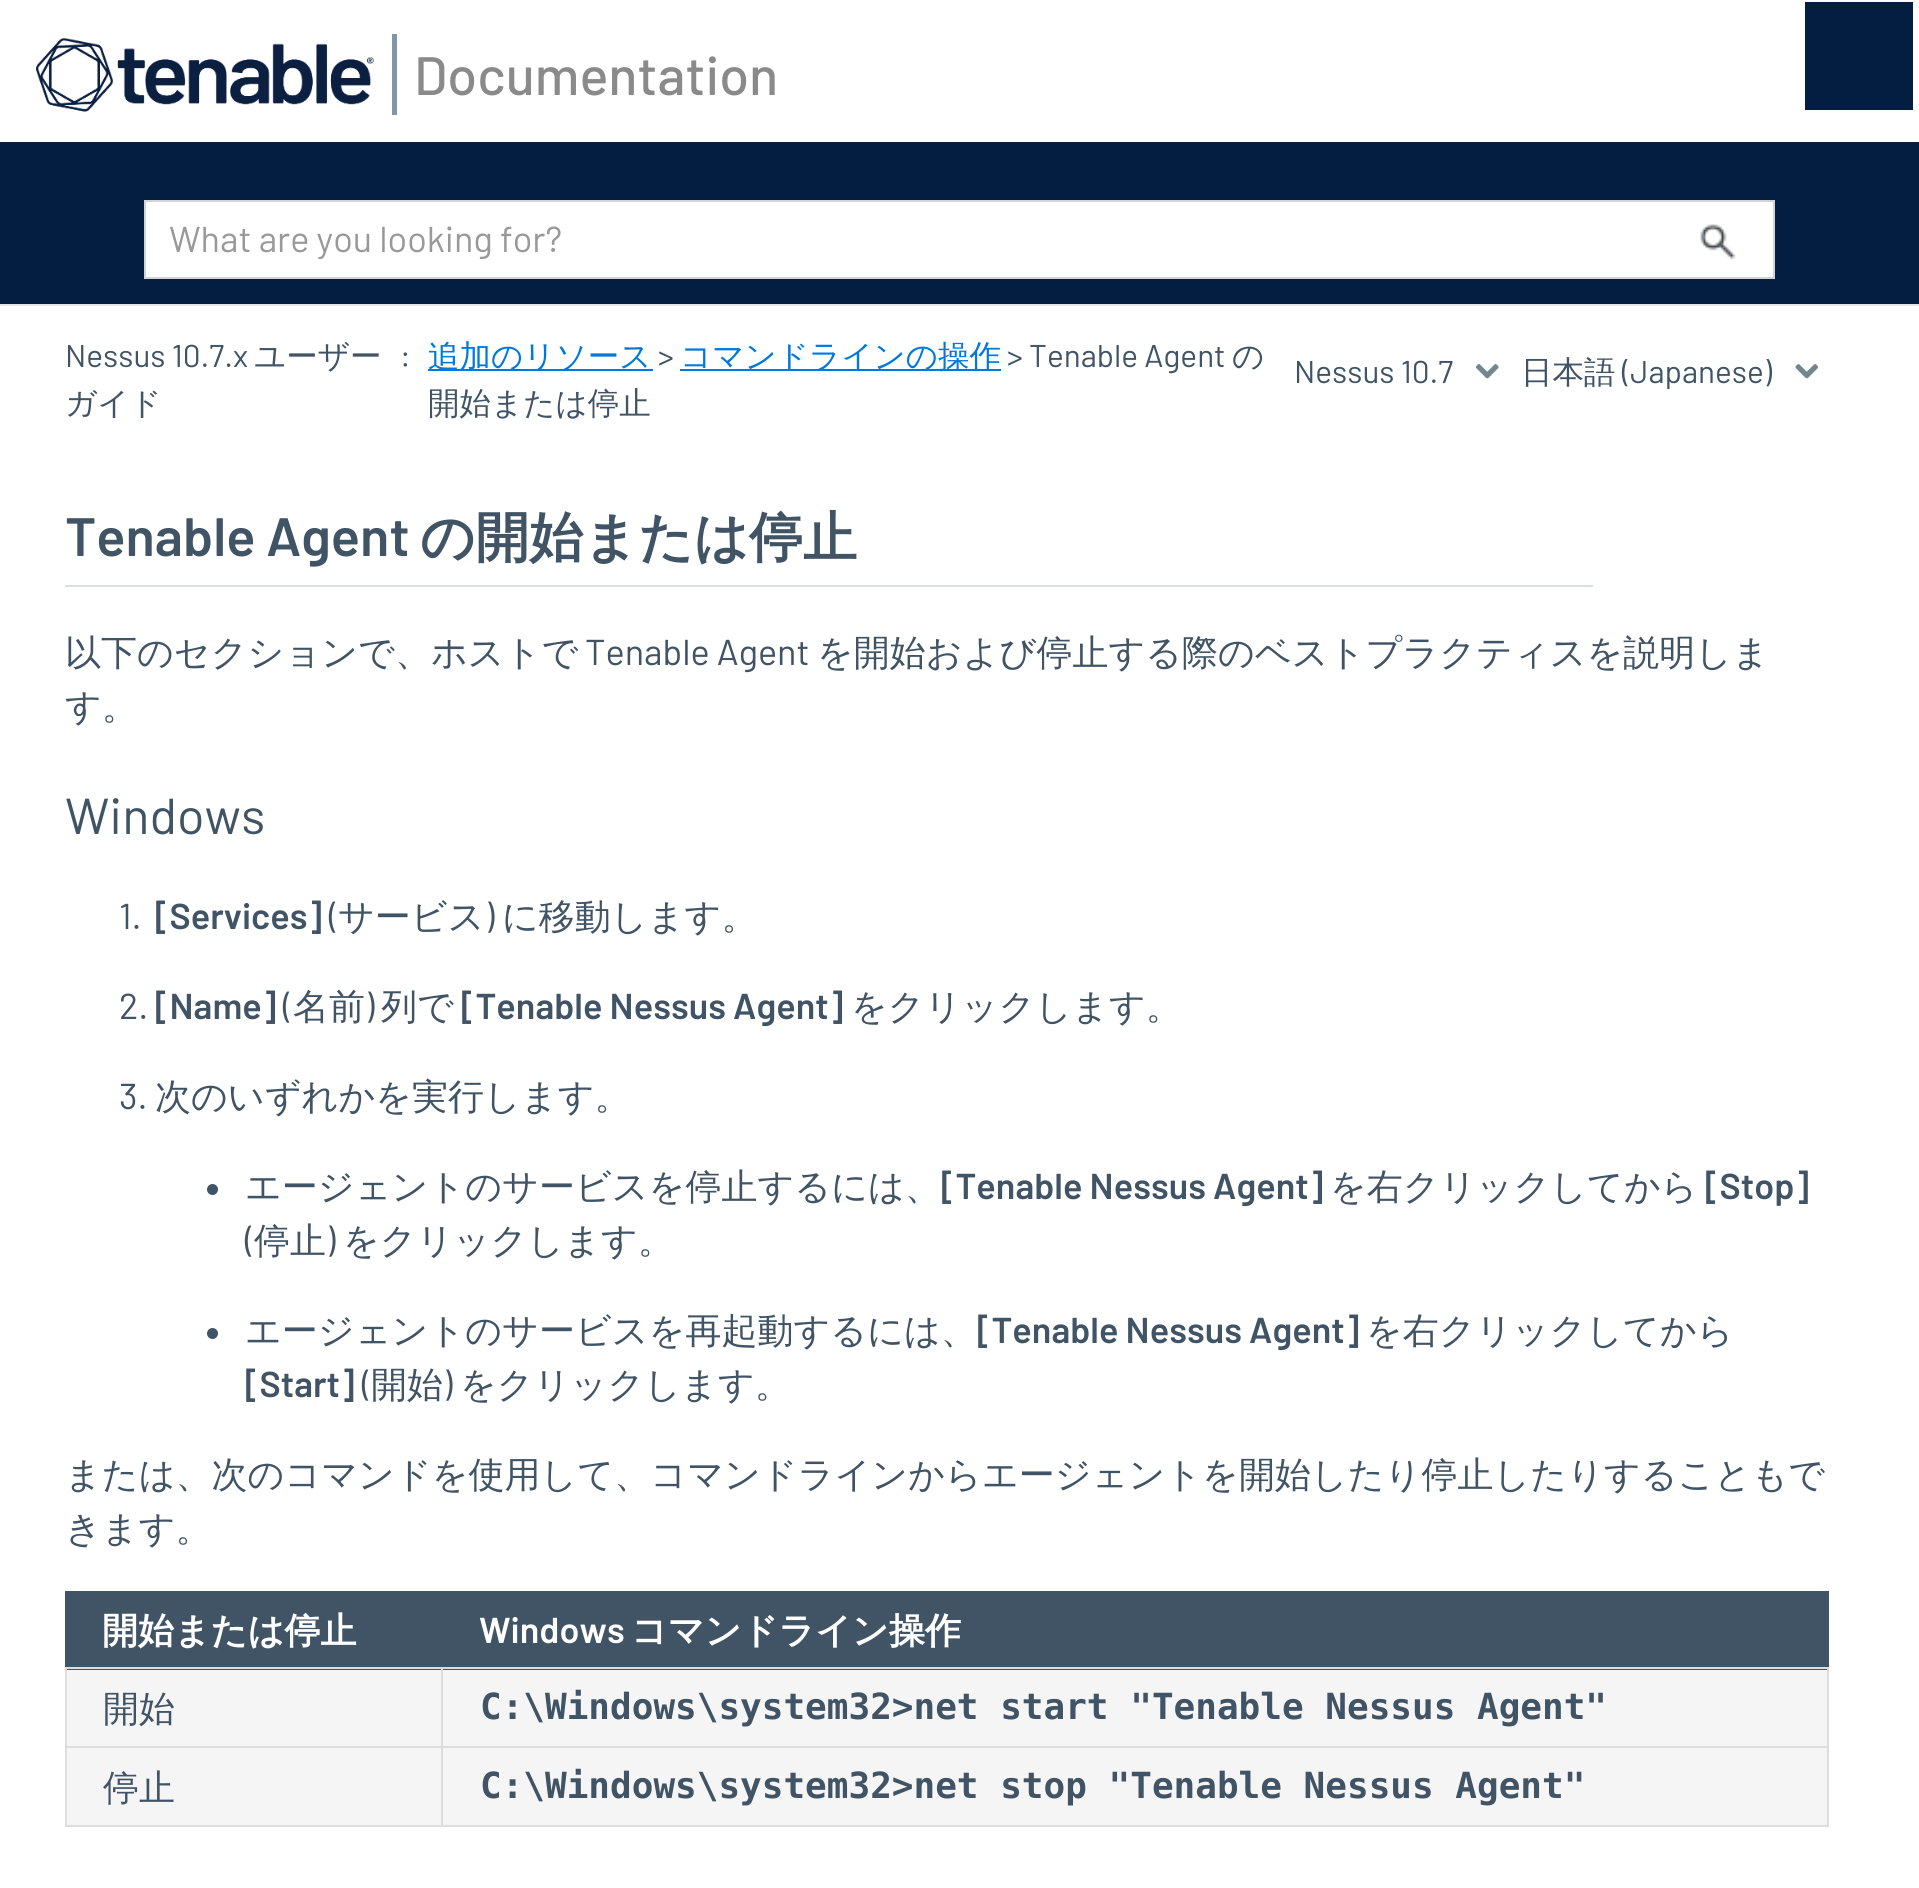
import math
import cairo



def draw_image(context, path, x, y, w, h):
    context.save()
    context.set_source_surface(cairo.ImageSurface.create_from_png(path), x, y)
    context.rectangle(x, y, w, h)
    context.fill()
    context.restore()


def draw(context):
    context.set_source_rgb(1, 1, 1)
    context.paint()
    context.set_source_rgb(230 / 255, 230 / 255, 230 / 255)
    context.rectangle(0, 304, 1919, 2)
    context.fill()
    draw_image(context, "images/1.png", 36, 37, 338, 75)
    context.set_source_rgb(130 / 255, 148 / 255, 168 / 255)
    context.rectangle(392, 34, 5, 81)
    context.fill()
    context.set_source_rgb(4 / 255, 30 / 255, 66 / 255)
    context.rectangle(0, 142, 1919, 162)
    context.fill()
    context.set_source_rgb(1, 1, 1)
    context.rectangle(145, 201, 1629, 77)
    context.fill_preserve()
    context.set_source_rgb(211 / 255, 211 / 255, 211 / 255)
    context.stroke()
    draw_image(context, "images/2.png", 1700, 224, 36, 36)
    context.set_source_rgb(4 / 255, 30 / 255, 66 / 255)
    context.rectangle(1805, 2, 108, 108)
    context.fill()
    context.set_source_rgb(0, 121 / 255, 221 / 255)
    context.rectangle(428, 369, 225, 2)
    context.fill()
    context.rectangle(680, 369, 321, 2)
    context.fill()
    draw_image(context, "images/3.png", 1476, 364, 23, 15)
    draw_image(context, "images/4.png", 1795, 364, 23, 15)
    context.set_source_rgb(218 / 255, 223 / 255, 225 / 255)
    context.rectangle(65, 585, 1528, 2)
    context.fill()
    context.set_source_rgb(65 / 255, 84 / 255, 101 / 255)
    context.arc(212.5, 1189.5, 5.5, 0, 2 * math.pi)
    context.fill()
    context.arc(212.5, 1333.5, 5.5, 0, 2 * math.pi)
    context.fill()
    context.rectangle(65, 1591, 1764, 79)
    context.fill()
    context.set_source_rgb(245 / 255, 245 / 255, 245 / 255)
    context.rectangle(67, 1670, 374, 76)
    context.fill()
    context.set_source_rgb(221 / 255, 221 / 255, 221 / 255)
    context.rectangle(441, 1667, 1388, 2)
    context.fill()
    context.rectangle(441, 1746, 1388, 2)
    context.fill()
    context.rectangle(1827, 1746, 2, 81)
    context.fill()
    context.rectangle(441, 1825, 1388, 2)
    context.fill()
    context.rectangle(441, 1746, 2, 81)
    context.fill()
    context.rectangle(65, 1746, 378, 2)
    context.fill()
    context.rectangle(441, 1667, 2, 81)
    context.fill()
    context.rectangle(65, 1667, 378, 2)
    context.fill()
    context.rectangle(65, 1825, 378, 2)
    context.fill()
    context.rectangle(65, 1746, 2, 81)
    context.fill()
    context.rectangle(65, 1667, 2, 81)
    context.fill()
    context.set_source_rgb(245 / 255, 245 / 255, 245 / 255)
    context.rectangle(443, 1670, 1384, 76)
    context.fill()
    context.set_source_rgb(221 / 255, 221 / 255, 221 / 255)
    context.rectangle(1827, 1667, 2, 81)
    context.fill()
    context.set_source_rgb(245 / 255, 245 / 255, 245 / 255)
    context.rectangle(67, 1748, 374, 77)
    context.fill()
    context.rectangle(443, 1748, 1384, 77)
    context.fill()
    context.select_font_face("Barlow Medium")
    context.set_font_size(54)
    context.set_source_rgb(138 / 255, 138 / 255, 138 / 255)
    context.move_to(414, 95)
    context.show_text("Documentation")
    context.save()
    context.rectangle(169, 216, 1377, 43)
    context.clip()
    context.select_font_face("Barlow")
    context.set_font_size(36)
    context.set_source_rgb(153 / 255, 153 / 255, 153 / 255)
    context.move_to(169, 252)
    context.show_text("What are you looking for?")
    context.restore()
    context.select_font_face("Barlow")
    context.set_font_size(31.5)
    context.set_source_rgb(65 / 255, 84 / 255, 101 / 255)
    context.move_to(65, 367)
    context.show_text("Nessus 10.7.x")
    context.select_font_face("WenQuanYi Zen Hei Medium")
    context.move_to(254, 367)
    context.show_text("ユーザー")
    context.move_to(65, 414)
    context.show_text("ガイド")
    context.select_font_face("Barlow")
    context.move_to(400, 367)
    context.show_text(":")
    context.select_font_face("WenQuanYi Zen Hei Medium")
    context.set_source_rgb(0, 121 / 255, 221 / 255)
    context.move_to(428, 367)
    context.show_text("追加のリソース")
    context.select_font_face("Barlow")
    context.set_source_rgb(65 / 255, 84 / 255, 101 / 255)
    context.move_to(658, 367)
    context.show_text(">")
    context.select_font_face("WenQuanYi Zen Hei Medium")
    context.set_source_rgb(0, 121 / 255, 221 / 255)
    context.move_to(680, 367)
    context.show_text("コマンドラインの操作")
    context.select_font_face("Barlow")
    context.set_source_rgb(65 / 255, 84 / 255, 101 / 255)
    context.move_to(1007, 367)
    context.show_text("> Tenable Agent")
    context.select_font_face("WenQuanYi Zen Hei Medium")
    context.move_to(1232, 367)
    context.show_text("の")
    context.move_to(428, 414)
    context.show_text("開始または停止")
    context.select_font_face("Barlow")
    context.move_to(1294, 383)
    context.show_text("Nessus 10.7")
    context.select_font_face("WenQuanYi Zen Hei Medium")
    context.move_to(1521, 383)
    context.show_text("日本語")
    context.select_font_face("Barlow")
    context.move_to(1622, 383)
    context.show_text("(Japanese)")
    context.select_font_face("Barlow SemiBold")
    context.set_font_size(54)
    context.move_to(65, 556)
    context.show_text("Tenable Agent")
    context.select_font_face("WenQuanYi Zen Hei", cairo.FontSlant.NORMAL, cairo.FontWeight.BOLD)
    context.move_to(420, 556)
    context.show_text("の開始または停止")
    context.select_font_face("WenQuanYi Zen Hei Medium")
    context.set_font_size(36)
    context.move_to(65, 665)
    context.show_text("以下のセクションで、ホストで")
    context.select_font_face("Barlow")
    context.move_to(585, 665)
    context.show_text("Tenable Agent")
    context.select_font_face("WenQuanYi Zen Hei Medium")
    context.move_to(817, 665)
    context.show_text("を開始および停止する際のベストプラクティスを説明しま")
    context.move_to(65, 719)
    context.show_text("す。")
    context.select_font_face("Barlow")
    context.set_font_size(50.5)
    context.move_to(65, 834)
    context.show_text("Windows")
    context.set_font_size(36)
    context.move_to(119, 929)
    context.show_text("1.")
    context.select_font_face("Barlow SemiBold")
    context.move_to(155, 929)
    context.show_text("[Services]")
    context.select_font_face("Barlow")
    context.move_to(329, 929)
    context.show_text("(")
    context.select_font_face("WenQuanYi Zen Hei Medium")
    context.move_to(338, 929)
    context.show_text("サービス")
    context.select_font_face("Barlow")
    context.move_to(485, 929)
    context.show_text(")")
    context.select_font_face("WenQuanYi Zen Hei Medium")
    context.move_to(502, 929)
    context.show_text("に移動します。")
    context.select_font_face("Barlow")
    context.move_to(119, 1019)
    context.show_text("2.")
    context.select_font_face("Barlow SemiBold")
    context.move_to(155, 1019)
    context.show_text("[Name]")
    context.select_font_face("Barlow")
    context.move_to(283, 1019)
    context.show_text("(")
    context.select_font_face("WenQuanYi Zen Hei Medium")
    context.move_to(293, 1019)
    context.show_text("名前")
    context.select_font_face("Barlow")
    context.move_to(365, 1019)
    context.show_text(")")
    context.select_font_face("WenQuanYi Zen Hei Medium")
    context.move_to(381, 1019)
    context.show_text("列で")
    context.select_font_face("Barlow SemiBold")
    context.move_to(461, 1019)
    context.show_text("[Tenable Nessus Agent]")
    context.select_font_face("WenQuanYi Zen Hei Medium")
    context.move_to(851, 1019)
    context.show_text("をクリックします。")
    context.select_font_face("Barlow")
    context.move_to(119, 1109)
    context.show_text("3.")
    context.select_font_face("WenQuanYi Zen Hei Medium")
    context.move_to(155, 1109)
    context.show_text("次のいずれかを実行します。")
    context.move_to(245, 1199)
    context.show_text("エージェントのサービスを停止するには、")
    context.select_font_face("Barlow SemiBold")
    context.move_to(941, 1199)
    context.show_text("[Tenable Nessus Agent]")
    context.select_font_face("WenQuanYi Zen Hei Medium")
    context.move_to(1330, 1199)
    context.show_text("を右クリックしてから")
    context.select_font_face("Barlow SemiBold")
    context.move_to(1705, 1199)
    context.show_text("[Stop]")
    context.select_font_face("Barlow")
    context.move_to(245, 1253)
    context.show_text("(")
    context.select_font_face("WenQuanYi Zen Hei Medium")
    context.move_to(254, 1253)
    context.show_text("停止")
    context.select_font_face("Barlow")
    context.move_to(326, 1253)
    context.show_text(")")
    context.select_font_face("WenQuanYi Zen Hei Medium")
    context.move_to(343, 1253)
    context.show_text("をクリックします。")
    context.move_to(245, 1343)
    context.show_text("エージェントのサービスを再起動するには、")
    context.select_font_face("Barlow SemiBold")
    context.move_to(977, 1343)
    context.show_text("[Tenable Nessus Agent]")
    context.select_font_face("WenQuanYi Zen Hei Medium")
    context.move_to(1366, 1343)
    context.show_text("を右クリックしてから")
    context.select_font_face("Barlow SemiBold")
    context.move_to(245, 1397)
    context.show_text("[Start]")
    context.select_font_face("Barlow")
    context.move_to(362, 1397)
    context.show_text("(")
    context.select_font_face("WenQuanYi Zen Hei Medium")
    context.move_to(371, 1397)
    context.show_text("開始")
    context.select_font_face("Barlow")
    context.move_to(443, 1397)
    context.show_text(")")
    context.select_font_face("WenQuanYi Zen Hei Medium")
    context.move_to(460, 1397)
    context.show_text("をクリックします。")
    context.move_to(65, 1487)
    context.show_text("または、次のコマンドを使用して、コマンドラインからエージェントを開始したり停止したりすることもで")
    context.move_to(65, 1541)
    context.show_text("きます。")
    context.select_font_face("WenQuanYi Zen Hei", cairo.FontSlant.NORMAL, cairo.FontWeight.BOLD)
    context.set_source_rgb(1, 1, 1)
    context.move_to(102, 1643)
    context.show_text("開始または停止")
    context.select_font_face("Barlow SemiBold")
    context.move_to(479, 1643)
    context.show_text("Windows")
    context.select_font_face("WenQuanYi Zen Hei", cairo.FontSlant.NORMAL, cairo.FontWeight.BOLD)
    context.move_to(631, 1643)
    context.show_text("コマンドライン操作")
    context.select_font_face("WenQuanYi Zen Hei Medium")
    context.set_source_rgb(65 / 255, 84 / 255, 101 / 255)
    context.move_to(103, 1721)
    context.show_text("開始")
    context.select_font_face("DejaVu Sans Mono", cairo.FontSlant.NORMAL, cairo.FontWeight.BOLD)
    context.move_to(480, 1719)
    context.show_text("C:\\Windows\\system32>net start \"Tenable Nessus Agent\"")
    context.select_font_face("WenQuanYi Zen Hei Medium")
    context.move_to(103, 1800)
    context.show_text("停止")
    context.select_font_face("DejaVu Sans Mono", cairo.FontSlant.NORMAL, cairo.FontWeight.BOLD)
    context.move_to(480, 1798)
    context.show_text("C:\\Windows\\system32>net stop \"Tenable Nessus Agent\"")


surface = cairo.ImageSurface(cairo.Format.RGB24, 1919, 1888)
context = cairo.Context(surface)
options = cairo.FontOptions()
options.set_hint_metrics(cairo.HintMetrics.OFF)
options.set_hint_style(cairo.HintStyle.NONE)
context.set_font_options(options)
context.set_miter_limit(4)
draw(context)
surface.write_to_png("out.png")
